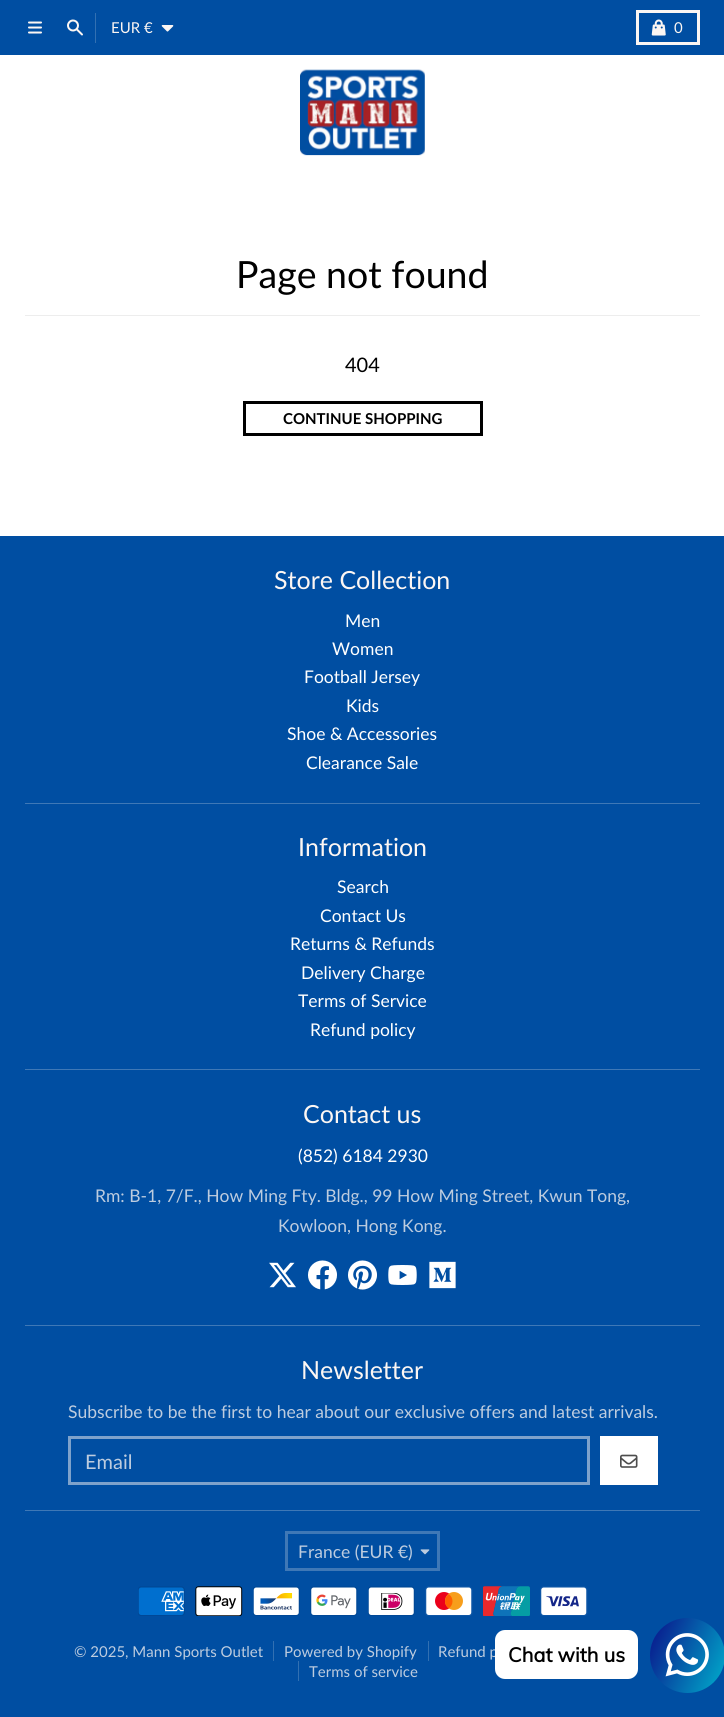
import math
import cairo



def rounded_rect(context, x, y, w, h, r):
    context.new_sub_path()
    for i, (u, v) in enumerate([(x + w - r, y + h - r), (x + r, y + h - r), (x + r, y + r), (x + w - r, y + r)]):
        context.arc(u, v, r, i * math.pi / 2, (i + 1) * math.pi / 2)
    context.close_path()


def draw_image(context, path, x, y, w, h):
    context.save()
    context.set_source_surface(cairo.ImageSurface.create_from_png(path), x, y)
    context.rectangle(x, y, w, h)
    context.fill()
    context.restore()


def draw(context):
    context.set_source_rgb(0, 78 / 255, 162 / 255)
    context.paint()
    draw_image(context, "images/1.png", 28, 21, 14, 13)
    draw_image(context, "images/2.png", 67, 19, 16, 17)
    context.set_source_rgb(50 / 255, 112 / 255, 178 / 255)
    context.rectangle(95, 13, 1, 30)
    context.fill()
    draw_image(context, "images/3.png", 161, 25, 13, 7)
    context.rectangle(637.5, 11.5, 61, 32)
    context.set_source_rgb(252 / 255, 246 / 255, 243 / 255)
    context.set_line_width(3)
    context.stroke()
    draw_image(context, "images/4.png", 651, 19, 15, 17)
    context.set_source_rgb(1, 1, 1)
    context.rectangle(0, 55, 724, 481)
    context.fill()
    draw_image(context, "images/5.png", 300, 69, 125, 87)
    context.set_source_rgb(237 / 255, 237 / 255, 237 / 255)
    context.rectangle(25, 315, 675, 1)
    context.fill()
    context.rectangle(244.5, 402.5, 237, 32)
    context.set_source_rgb(0, 0, 0)
    context.stroke()
    context.set_source_rgb(63 / 255, 120 / 255, 182 / 255)
    context.rectangle(25, 803, 675, 1)
    context.fill()
    context.rectangle(25, 1069, 675, 1)
    context.fill()
    draw_image(context, "images/6.png", 269, 1262, 27, 26)
    draw_image(context, "images/7.png", 308, 1260, 29, 30)
    draw_image(context, "images/8.png", 348, 1260, 29, 30)
    draw_image(context, "images/9.png", 388, 1265, 29, 20)
    draw_image(context, "images/10.png", 429, 1261, 27, 28)
    context.rectangle(25, 1325, 675, 1)
    context.fill()
    context.rectangle(69.5, 1437.5, 519, 46)
    context.set_source_rgb(126 / 255, 162 / 255, 203 / 255)
    context.stroke()
    context.set_source_rgb(1, 1, 1)
    context.rectangle(600, 1436, 58, 49)
    context.fill()
    draw_image(context, "images/11.png", 620, 1454, 18, 14)
    context.set_source_rgb(63 / 255, 120 / 255, 182 / 255)
    context.rectangle(25, 1510, 675, 1)
    context.fill()
    context.rectangle(286.5, 1532.5, 152, 37)
    context.stroke()
    draw_image(context, "images/12.png", 420, 1549, 10, 6)
    draw_image(context, "images/13.png", 138, 1586, 47, 30)
    draw_image(context, "images/14.png", 195, 1586, 48, 30)
    draw_image(context, "images/15.png", 253, 1586, 47, 30)
    draw_image(context, "images/16.png", 310, 1586, 48, 30)
    draw_image(context, "images/17.png", 368, 1586, 47, 30)
    draw_image(context, "images/18.png", 425, 1586, 48, 30)
    draw_image(context, "images/19.png", 483, 1586, 47, 30)
    draw_image(context, "images/20.png", 540, 1586, 48, 30)
    context.set_source_rgb(50 / 255, 112 / 255, 178 / 255)
    context.rectangle(273, 1641, 1, 20)
    context.fill()
    context.rectangle(428, 1641, 1, 20)
    context.fill()
    context.rectangle(298, 1661, 1, 20)
    context.fill()
    gradient = cairo.LinearGradient(642, 1634, 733, 1676)
    gradient.add_color_stop_rgba(0, 10 / 255, 14 / 255, 136 / 255, 1)
    gradient.add_color_stop_rgba(1, 0, 177 / 255, 206 / 255, 1)
    context.set_source(gradient)
    context.arc(687.5, 1655.5, 37.5, 0, 2 * math.pi)
    context.fill()
    draw_image(context, "images/21.png", 665, 1633, 44, 44)
    context.select_font_face("Lato")
    context.set_font_size(15)
    context.set_source_rgb(252 / 255, 246 / 255, 243 / 255)
    context.move_to(111, 33)
    context.show_text("EUR €")
    context.move_to(674, 33)
    context.show_text("0")
    context.set_font_size(37.5)
    context.set_source_rgb(0, 0, 0)
    context.move_to(236, 288)
    context.show_text("Page not found")
    context.set_font_size(20)
    context.move_to(345, 372)
    context.show_text("404")
    context.select_font_face("Lato", cairo.FontSlant.NORMAL, cairo.FontWeight.BOLD)
    context.set_font_size(15)
    context.move_to(283, 424)
    context.show_text("CONTINUE SHOPPING")
    context.select_font_face("Lato")
    context.set_font_size(25)
    context.set_source_rgb(252 / 255, 246 / 255, 243 / 255)
    context.move_to(274, 589)
    context.show_text("Store Collection")
    context.set_font_size(17.5)
    context.set_source_rgb(1, 1, 1)
    context.move_to(345, 627)
    context.show_text("Men")
    context.move_to(332, 655)
    context.show_text("Women")
    context.move_to(304, 683)
    context.show_text("Football Jersey")
    context.move_to(346, 712)
    context.show_text("Kids")
    context.move_to(287, 740)
    context.show_text("Shoe & Accessories")
    context.move_to(306, 769)
    context.show_text("Clearance Sale")
    context.set_font_size(25)
    context.set_source_rgb(252 / 255, 246 / 255, 243 / 255)
    context.move_to(298, 856)
    context.show_text("Information")
    context.set_font_size(17.5)
    context.set_source_rgb(1, 1, 1)
    context.move_to(337, 893)
    context.show_text("Search")
    context.move_to(320, 922)
    context.show_text("Contact Us")
    context.move_to(290, 950)
    context.show_text("Returns & Refunds")
    context.move_to(301, 979)
    context.show_text("Delivery Charge")
    context.move_to(298, 1007)
    context.show_text("Terms of Service")
    context.move_to(310, 1036)
    context.show_text("Refund policy")
    context.set_font_size(25)
    context.set_source_rgb(252 / 255, 246 / 255, 243 / 255)
    context.move_to(303, 1123)
    context.show_text("Contact us")
    context.set_font_size(17.5)
    context.set_source_rgb(1, 1, 1)
    context.move_to(298, 1162)
    context.show_text("(852) 6184 2930")
    context.set_source_rgb(189 / 255, 204 / 255, 223 / 255)
    context.move_to(95, 1202)
    context.show_text("Rm: B-1, 7/F., How Ming Fty. Bldg., 99 How Ming Street, Kwun Tong,")
    context.move_to(278, 1232)
    context.show_text("Kowloon, Hong Kong.")
    context.set_font_size(25)
    context.set_source_rgb(252 / 255, 246 / 255, 243 / 255)
    context.move_to(301, 1379)
    context.show_text("Newsletter")
    context.set_font_size(17.5)
    context.set_source_rgb(189 / 255, 204 / 255, 223 / 255)
    context.move_to(68, 1418)
    context.show_text("Subscribe to be the first to hear about our exclusive offers and latest arrivals.")
    context.set_font_size(20)
    context.move_to(85, 1469)
    context.show_text("Email")
    context.set_font_size(17.5)
    context.move_to(298, 1558)
    context.show_text("France (EUR €)")
    context.set_font_size(15)
    context.move_to(74, 1657)
    context.show_text("© 2025, Mann Sports Outlet")
    context.move_to(284, 1657)
    context.show_text("Powered by Shopify")
    context.move_to(438, 1657)
    context.show_text("Refund p")
    context.move_to(309, 1677)
    context.show_text("Terms of service")
    context.set_source_rgb(1, 1, 1)
    rounded_rect(context, 495, 1630, 143, 49, 10)
    context.fill()
    context.select_font_face("Muli", cairo.FontSlant.NORMAL, cairo.FontWeight.BOLD)
    context.set_font_size(20)
    context.set_source_rgb(0, 0, 0)
    context.move_to(508, 1662)
    context.show_text("Chat with us")


surface = cairo.ImageSurface(cairo.Format.RGB24, 724, 1717)
context = cairo.Context(surface)
options = cairo.FontOptions()
options.set_hint_metrics(cairo.HintMetrics.OFF)
options.set_hint_style(cairo.HintStyle.NONE)
context.set_font_options(options)
context.set_miter_limit(4)
draw(context)
surface.write_to_png("out.png")
